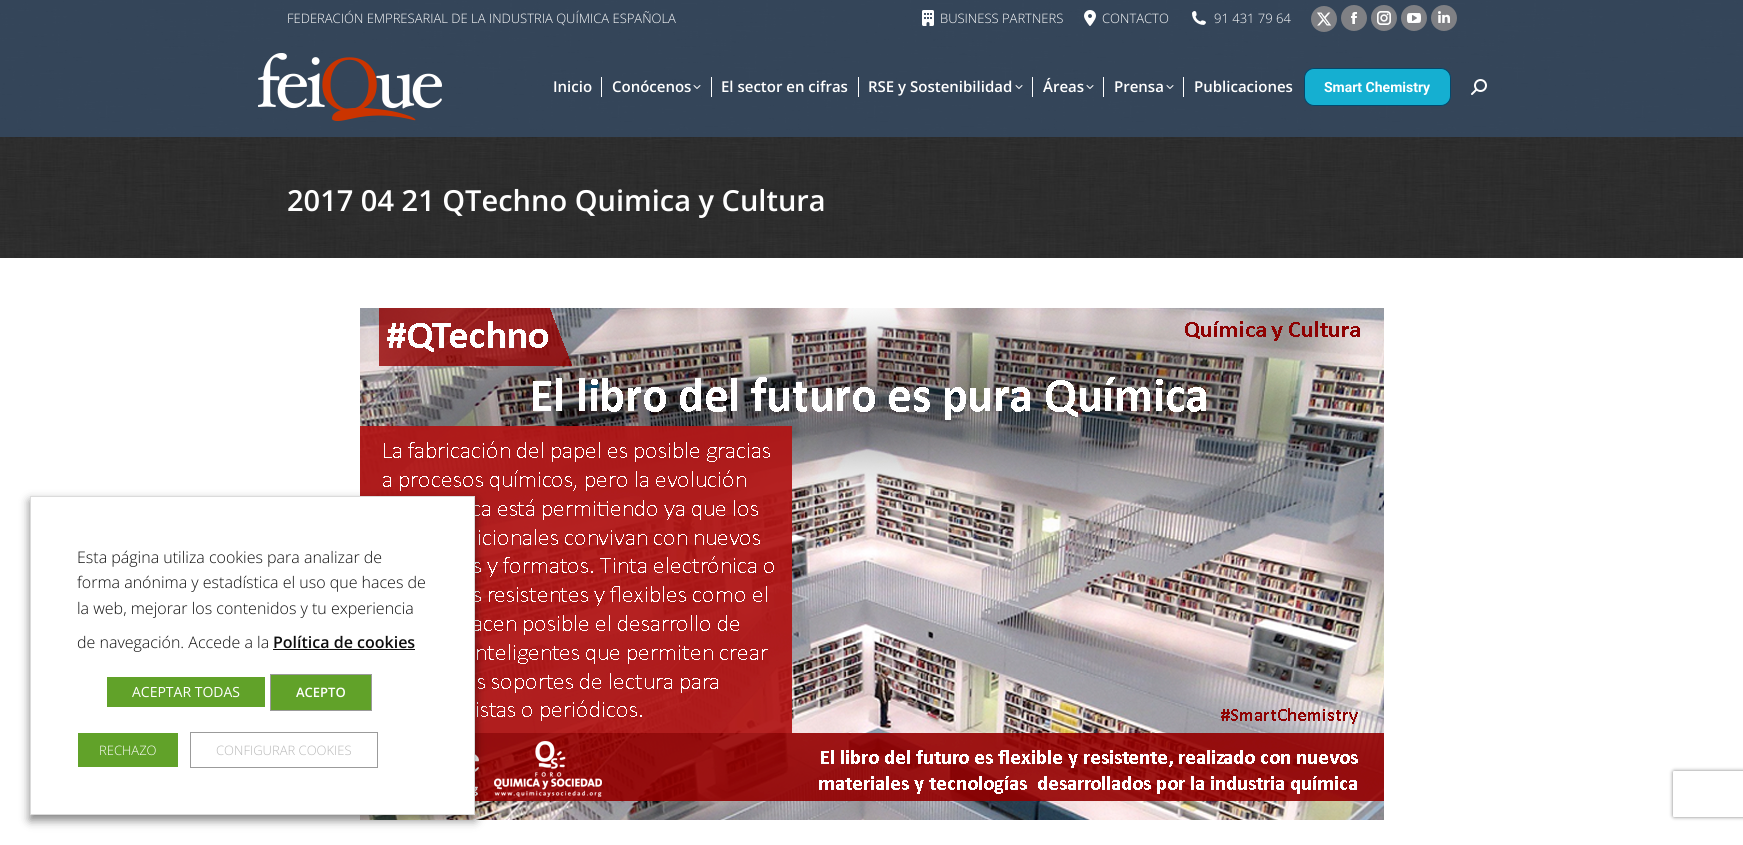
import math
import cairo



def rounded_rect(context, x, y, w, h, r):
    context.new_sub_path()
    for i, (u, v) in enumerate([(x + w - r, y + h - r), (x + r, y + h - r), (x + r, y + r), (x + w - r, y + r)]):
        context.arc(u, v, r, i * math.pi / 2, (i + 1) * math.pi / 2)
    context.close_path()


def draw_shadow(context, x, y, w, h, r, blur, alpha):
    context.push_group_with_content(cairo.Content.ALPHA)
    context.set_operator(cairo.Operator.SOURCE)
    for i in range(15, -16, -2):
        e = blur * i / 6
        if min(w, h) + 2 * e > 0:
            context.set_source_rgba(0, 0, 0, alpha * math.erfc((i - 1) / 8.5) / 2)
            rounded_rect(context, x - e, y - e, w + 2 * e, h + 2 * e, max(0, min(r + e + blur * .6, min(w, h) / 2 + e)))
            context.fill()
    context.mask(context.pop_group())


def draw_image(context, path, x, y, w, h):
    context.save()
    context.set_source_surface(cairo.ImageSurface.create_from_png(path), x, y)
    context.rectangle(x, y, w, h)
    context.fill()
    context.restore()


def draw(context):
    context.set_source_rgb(1, 1, 1)
    context.paint()
    draw_image(context, "images/15.png", 0, 0, 1743, 258)
    context.set_source_rgba(54 / 255, 75 / 255, 99 / 255, 0.82)
    context.rectangle(0, 0, 1743, 137)
    context.fill()
    draw_image(context, "images/1.png", 922, 10, 12, 16)
    draw_image(context, "images/2.png", 1084, 10, 12, 16)
    draw_image(context, "images/3.png", 1192, 11, 14, 14)
    context.set_source_rgb(127 / 255, 128 / 255, 132 / 255)
    context.arc(1324, 19, 13, 0, 2 * math.pi)
    context.fill()
    draw_image(context, "images/4.png", 1317, 12, 15, 14)
    context.arc(1354, 18, 13, 0, 2 * math.pi)
    context.fill()
    draw_image(context, "images/5.png", 1351, 12, 6, 12)
    context.arc(1384, 18, 13, 0, 2 * math.pi)
    context.fill()
    draw_image(context, "images/6.png", 1377, 11, 14, 14)
    context.arc(1414, 18, 13, 0, 2 * math.pi)
    context.fill()
    draw_image(context, "images/7.png", 1407, 13, 14, 10)
    context.arc(1444, 18, 13, 0, 2 * math.pi)
    context.fill()
    draw_image(context, "images/8.png", 1438, 11, 12, 12)
    draw_image(context, "images/9.png", 258, 53, 184, 68)
    context.set_source_rgb(1, 1, 1)
    context.rectangle(601, 77, 1, 20)
    context.fill()
    draw_image(context, "images/10.png", 693, 85, 8, 4)
    context.rectangle(711, 77, 1, 20)
    context.fill()
    context.rectangle(858, 77, 1, 20)
    context.fill()
    draw_image(context, "images/11.png", 1015, 85, 8, 4)
    context.rectangle(1032, 77, 1, 20)
    context.fill()
    draw_image(context, "images/12.png", 1086, 85, 8, 4)
    context.rectangle(1103, 77, 1, 20)
    context.fill()
    draw_image(context, "images/13.png", 1166, 85, 8, 4)
    context.rectangle(1183, 77, 1, 20)
    context.fill()
    context.set_source_rgb(21 / 255, 175 / 255, 209 / 255)
    rounded_rect(context, 1304.5, 68.5, 146, 37, 9.5)
    context.fill_preserve()
    context.set_source_rgb(1 / 255, 73 / 255, 109 / 255)
    context.set_line_width(1)
    context.stroke()
    draw_image(context, "images/14.png", 1471, 79, 16, 16)
    draw_image(context, "images/16.png", 360, 308, 1024, 512)
    context.set_source_rgb(0, 0, 0)
    draw_shadow(context, 30, 501, 445, 319, 0, 5, 0.5)
    context.set_source_rgb(1, 1, 1)
    context.rectangle(30.5, 496.5, 444, 318)
    context.fill_preserve()
    context.set_source_rgb(219 / 255, 219 / 255, 219 / 255)
    context.stroke()
    context.set_source_rgb(14 / 255, 14 / 255, 14 / 255)
    context.rectangle(273, 649, 142, 1)
    context.fill()
    context.set_source_rgb(97 / 255, 162 / 255, 41 / 255)
    context.rectangle(107, 677, 158, 30)
    context.fill()
    context.rectangle(270.5, 674.5, 101, 36)
    context.fill_preserve()
    context.set_source_rgb(155 / 255, 155 / 255, 155 / 255)
    context.stroke()
    context.set_source_rgb(97 / 255, 162 / 255, 41 / 255)
    context.rectangle(78, 733, 100, 34)
    context.fill()
    context.rectangle(190.5, 732.5, 187, 35)
    context.set_source_rgb(155 / 255, 155 / 255, 155 / 255)
    context.stroke()
    context.save()
    context.set_fill_rule(cairo.FillRule.EVEN_ODD)
    context.new_path()
    context.move_to(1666, 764)
    context.line_to(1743, 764)
    context.line_to(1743, 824)
    context.line_to(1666, 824)
    context.close_path()
    context.move_to(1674.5, 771)
    context.line_to(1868.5, 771)
    context.curve_to(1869.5, 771, 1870, 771.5, 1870, 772.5)
    context.line_to(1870, 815.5)
    context.curve_to(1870, 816.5, 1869.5, 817, 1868.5, 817)
    context.line_to(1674.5, 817)
    context.curve_to(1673.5, 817, 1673, 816.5, 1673, 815.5)
    context.line_to(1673, 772.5)
    context.curve_to(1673, 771.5, 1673.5, 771, 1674.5, 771)
    context.close_path()
    context.clip()
    context.set_source_rgb(128 / 255, 128 / 255, 128 / 255)
    draw_shadow(context, 1673, 771, 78, 46, 1.5, 2, 1)
    context.restore()
    context.select_font_face("Open Sans Light")
    context.set_font_size(13)
    context.set_source_rgb(1, 1, 1)
    context.move_to(287, 23)
    context.show_text("FEDERACIÓN EMPRESARIAL DE LA INDUSTRIA QUÍMICA ESPAÑOLA")
    context.move_to(940, 23)
    context.show_text("BUSINESS PARTNERS")
    context.move_to(1102, 23)
    context.show_text("CONTACTO")
    context.move_to(1214, 23)
    context.show_text("91 431 79 64")
    context.select_font_face("Open Sans SemiBold")
    context.set_font_size(15)
    context.move_to(553, 92)
    context.show_text("Inicio")
    context.move_to(612, 92)
    context.show_text("Conócenos")
    context.move_to(721, 92)
    context.show_text("El sector en cifras")
    context.move_to(868, 92)
    context.show_text("RSE y Sostenibilidad")
    context.move_to(1043, 92)
    context.show_text("Áreas")
    context.move_to(1114, 92)
    context.show_text("Prensa")
    context.move_to(1194, 92)
    context.show_text("Publicaciones")
    context.select_font_face("Roboto", cairo.FontSlant.NORMAL, cairo.FontWeight.BOLD)
    context.set_font_size(14)
    context.move_to(1324, 92)
    context.show_text("Smart Chemistry")
    context.select_font_face("Open Sans SemiBold")
    context.set_font_size(29)
    context.move_to(287, 211)
    context.show_text("2017 04 21 QTechno Quimica y Cultura")
    context.select_font_face("Open Sans Light")
    context.set_font_size(16)
    context.set_source_rgb(14 / 255, 14 / 255, 14 / 255)
    context.move_to(77, 563)
    context.show_text("Esta página utiliza cookies para analizar de")
    context.move_to(77, 588)
    context.show_text("forma anónima y estadística el uso que haces de")
    context.move_to(77, 614)
    context.show_text("la web, mejorar los contenidos y tu experiencia")
    context.move_to(77, 648)
    context.show_text("de navegación. Accede a la")
    context.select_font_face("Open Sans SemiBold")
    context.move_to(273, 648)
    context.show_text("Política de cookies")
    context.select_font_face("Open Sans")
    context.set_font_size(14)
    context.set_source_rgb(1, 1, 1)
    context.move_to(132, 697)
    context.show_text("ACEPTAR TODAS")
    context.select_font_face("Open Sans SemiBold")
    context.set_font_size(13)
    context.move_to(296, 697)
    context.show_text("ACEPTO")
    context.select_font_face("Open Sans Light")
    context.move_to(99, 755)
    context.show_text("RECHAZO")
    context.set_source_rgb(183 / 255, 183 / 255, 183 / 255)
    context.move_to(216, 755)
    context.show_text("CONFIGURAR COOKIES")


surface = cairo.ImageSurface(cairo.Format.RGB24, 1743, 845)
context = cairo.Context(surface)
options = cairo.FontOptions()
options.set_hint_metrics(cairo.HintMetrics.OFF)
options.set_hint_style(cairo.HintStyle.NONE)
context.set_font_options(options)
context.set_miter_limit(4)
draw(context)
surface.write_to_png("out.png")
